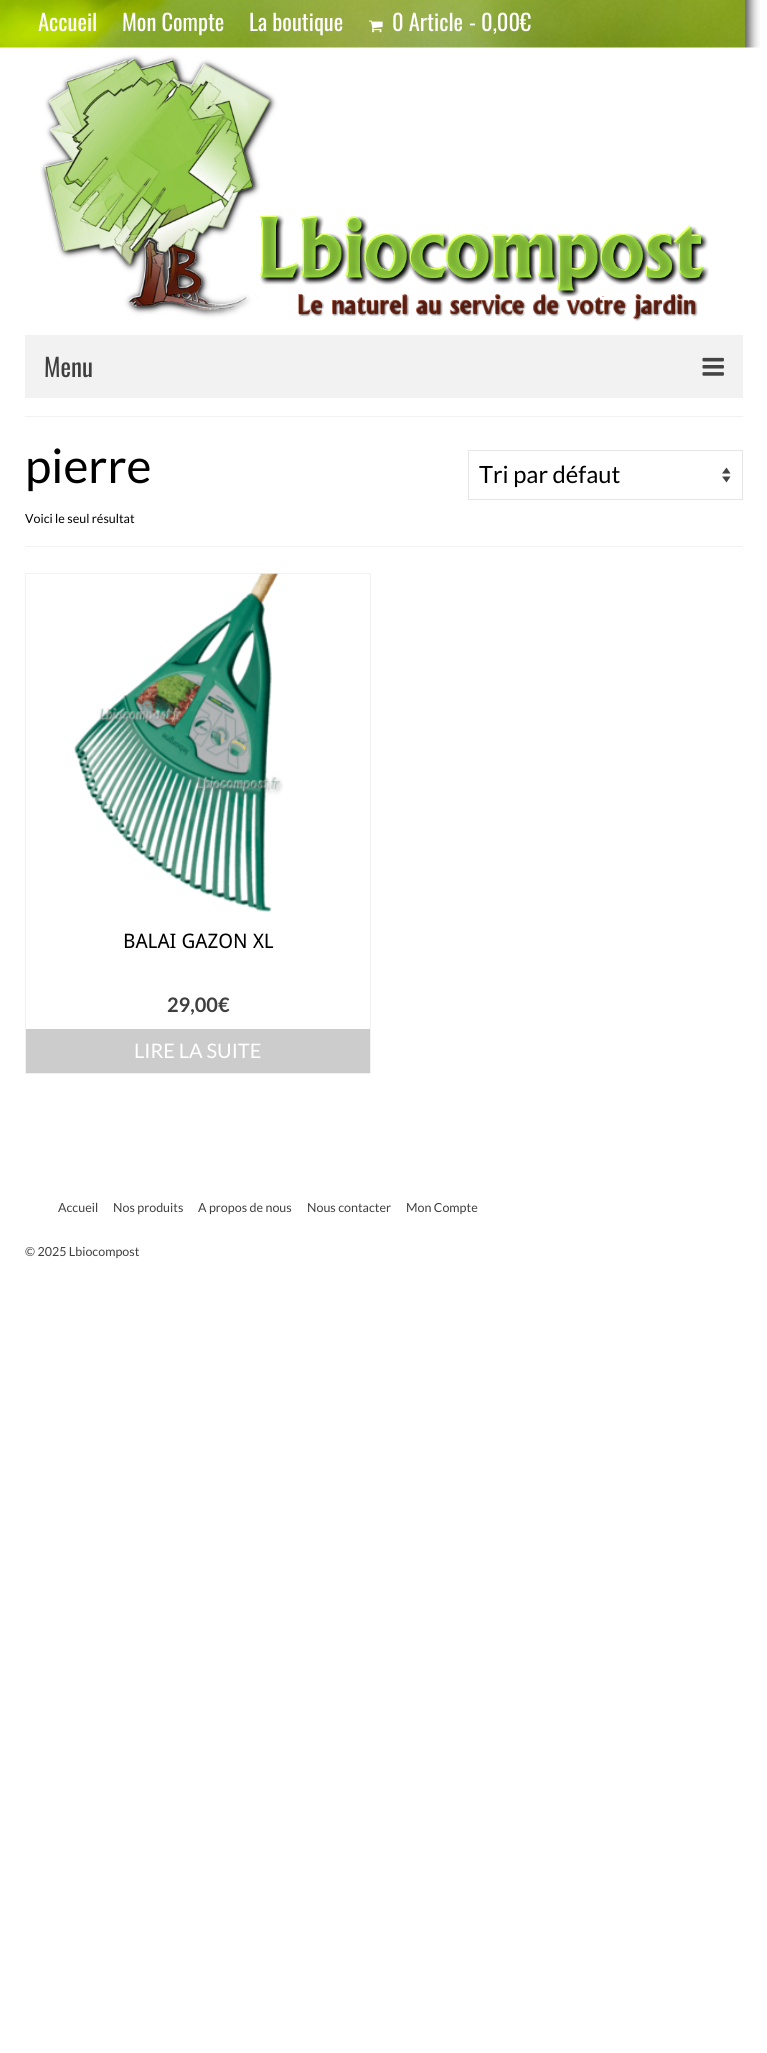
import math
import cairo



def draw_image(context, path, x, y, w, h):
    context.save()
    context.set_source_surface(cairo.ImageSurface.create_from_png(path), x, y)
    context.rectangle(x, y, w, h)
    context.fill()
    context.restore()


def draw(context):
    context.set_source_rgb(1, 1, 1)
    context.paint()
    draw_image(context, "images/1.png", 0, 0, 760, 48)
    draw_image(context, "images/2.png", 368, 20, 15, 13)
    draw_image(context, "images/3.png", 40, 55, 669, 266)
    context.set_source_rgb(242 / 255, 242 / 255, 242 / 255)
    context.rectangle(25, 335, 718, 63)
    context.fill()
    draw_image(context, "images/4.png", 702, 357, 22, 19)
    context.rectangle(25, 416, 718, 1)
    context.fill()
    context.rectangle(25, 546, 718, 1)
    context.fill()
    context.set_source_rgb(68 / 255, 68 / 255, 68 / 255)
    context.new_path()
    context.move_to(722, 473.5)
    context.line_to(726.5, 467.5)
    context.line_to(730.5, 473.5)
    context.close_path()
    context.move_to(730.5, 476.5)
    context.line_to(726.5, 482.5)
    context.line_to(722, 476.5)
    context.close_path()
    context.fill()
    context.rectangle(468.5, 450.5, 274, 49)
    context.set_source_rgb(230 / 255, 230 / 255, 230 / 255)
    context.set_line_width(1)
    context.stroke()
    context.rectangle(25.5, 573.5, 345, 500)
    context.set_source_rgb(242 / 255, 242 / 255, 242 / 255)
    context.stroke()
    draw_image(context, "images/5.png", 74, 573, 209, 340)
    context.set_source_rgb(204 / 255, 204 / 255, 204 / 255)
    context.rectangle(26, 1029, 344, 44)
    context.fill()
    context.select_font_face("Oswald")
    context.set_font_size(22.5)
    context.set_source_rgb(1, 1, 1)
    context.move_to(38, 31)
    context.show_text("Accueil")
    context.move_to(122, 31)
    context.show_text("Mon Compte")
    context.move_to(249, 31)
    context.show_text("La boutique")
    context.move_to(392, 31)
    context.show_text("0 Article")
    context.move_to(469, 31)
    context.show_text("-")
    context.move_to(481, 31)
    context.show_text("0,00€")
    context.set_font_size(25)
    context.set_source_rgb(63 / 255, 63 / 255, 63 / 255)
    context.move_to(44, 377)
    context.show_text("Menu")
    context.select_font_face("Lato")
    context.set_font_size(47.5)
    context.set_source_rgb(0, 0, 0)
    context.move_to(25, 483)
    context.show_text("pierre")
    context.set_font_size(23.75)
    context.move_to(479, 483)
    context.show_text("Tri par défaut")
    context.set_font_size(12.5)
    context.move_to(25, 523)
    context.show_text("Voici le seul résultat")
    context.select_font_face("Droid Sans")
    context.set_font_size(20)
    context.move_to(123, 948)
    context.show_text("BALAI GAZON XL")
    context.select_font_face("Lato", cairo.FontSlant.NORMAL, cairo.FontWeight.BOLD)
    context.set_source_rgb(63 / 255, 63 / 255, 63 / 255)
    context.move_to(167, 1012)
    context.show_text("29,00€")
    context.select_font_face("Lato")
    context.set_source_rgb(1, 1, 1)
    context.move_to(134, 1058)
    context.show_text("LIRE LA SUITE")
    context.set_font_size(12.5)
    context.set_source_rgb(63 / 255, 63 / 255, 63 / 255)
    context.move_to(58, 1212)
    context.show_text("Accueil")
    context.move_to(113, 1212)
    context.show_text("Nos produits")
    context.move_to(198, 1212)
    context.show_text("A propos de nous")
    context.move_to(307, 1212)
    context.show_text("Nous contacter")
    context.move_to(406, 1212)
    context.show_text("Mon Compte")
    context.move_to(25, 1256)
    context.show_text("© 2025 Lbiocompost")


surface = cairo.ImageSurface(cairo.Format.RGB24, 767, 2053)
context = cairo.Context(surface)
options = cairo.FontOptions()
options.set_hint_metrics(cairo.HintMetrics.OFF)
options.set_hint_style(cairo.HintStyle.NONE)
context.set_font_options(options)
context.set_miter_limit(4)
draw(context)
surface.write_to_png("out.png")
